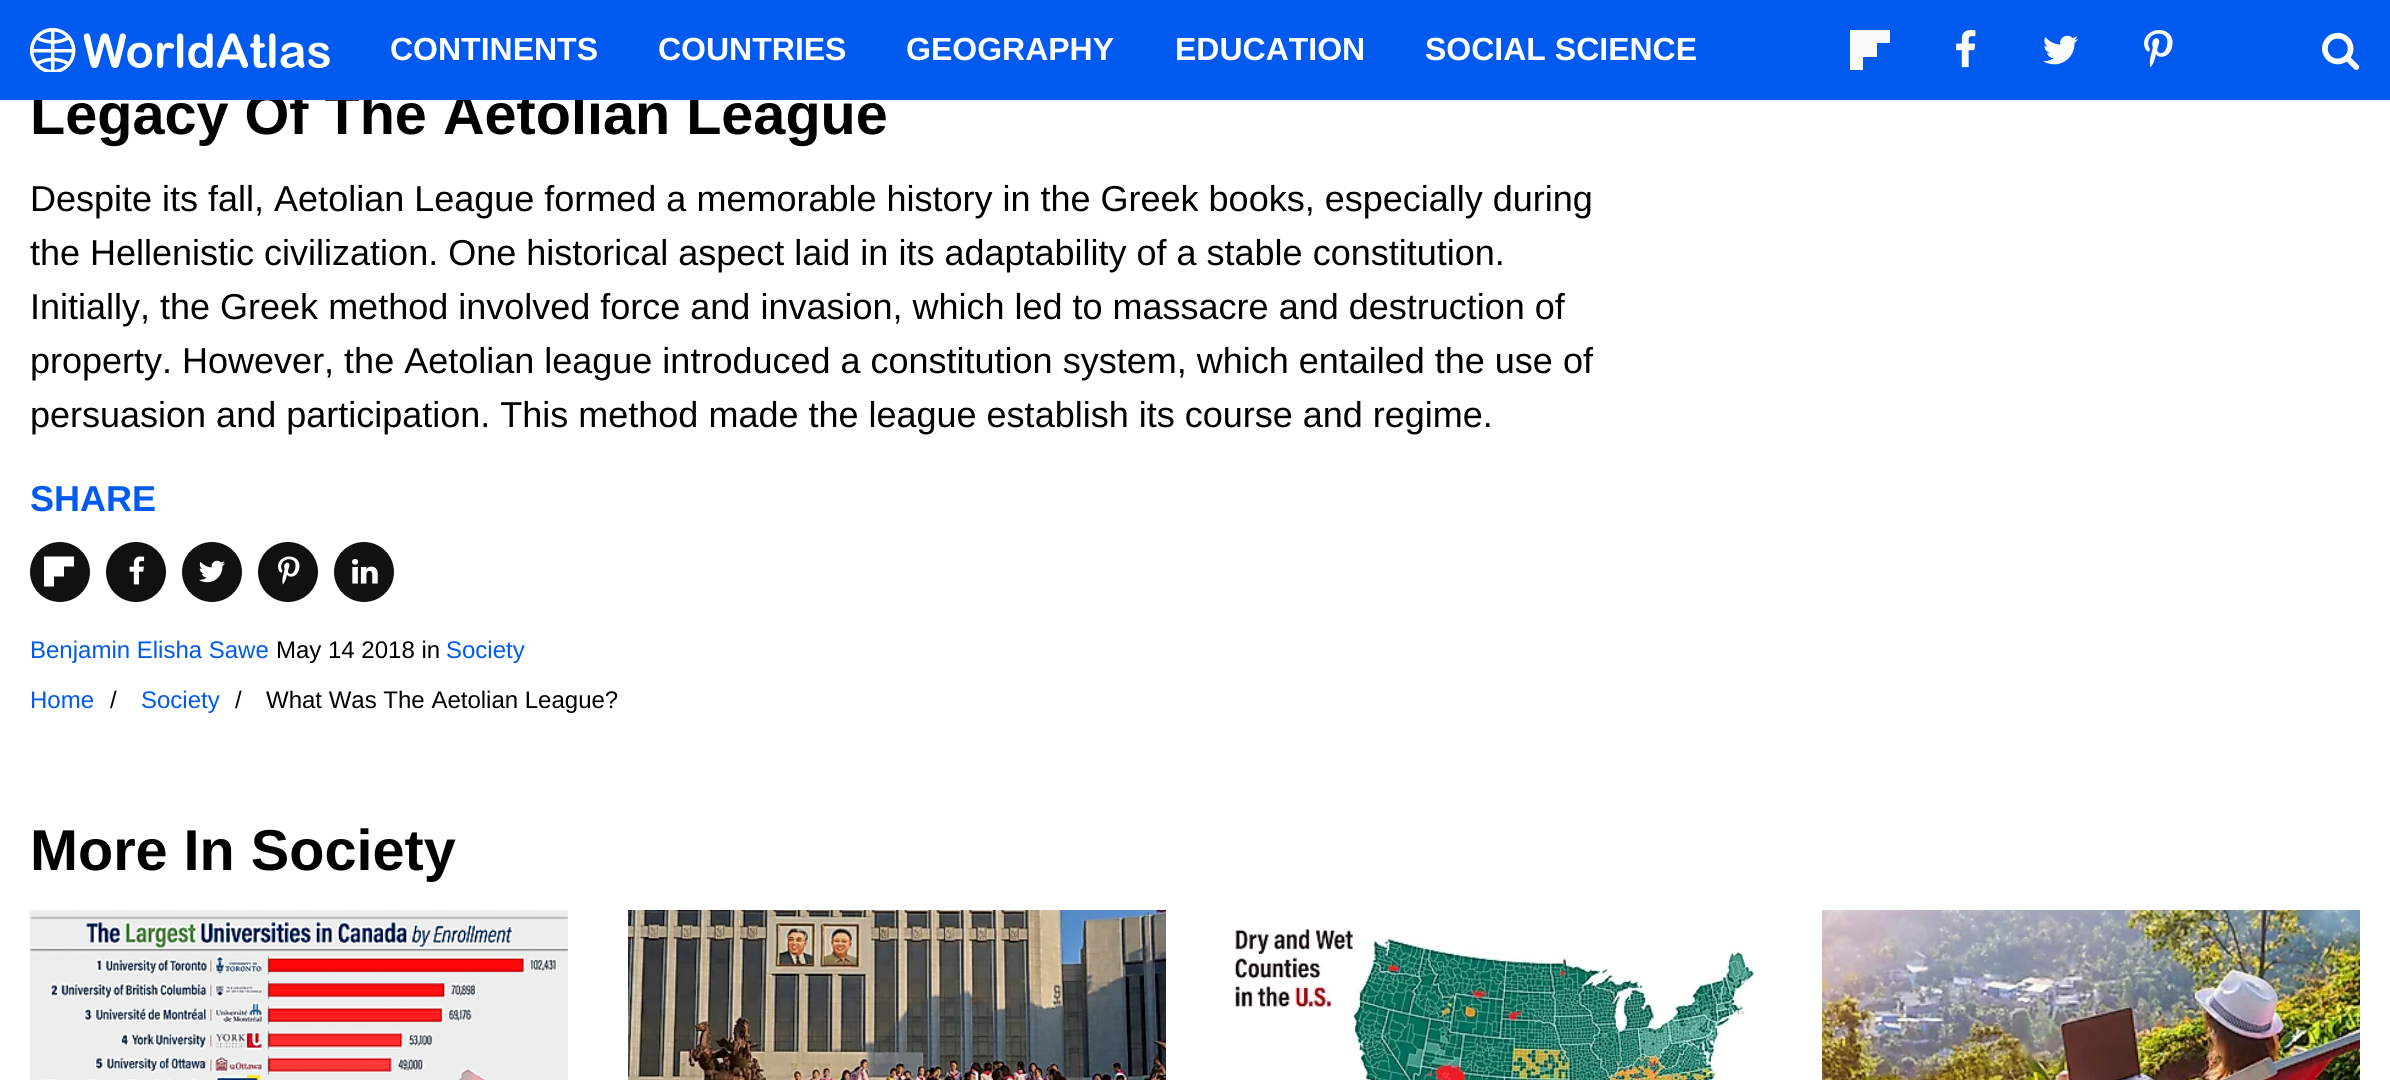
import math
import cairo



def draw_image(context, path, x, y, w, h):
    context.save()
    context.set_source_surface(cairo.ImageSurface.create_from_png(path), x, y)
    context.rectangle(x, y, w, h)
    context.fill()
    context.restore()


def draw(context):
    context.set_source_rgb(1, 1, 1)
    context.paint()
    context.set_source_rgb(17 / 255, 17 / 255, 17 / 255)
    context.arc(60, 572, 30, 0, 2 * math.pi)
    context.fill()
    context.set_source_rgb(1, 1, 1)
    context.new_path()
    context.move_to(74, 556.5)
    context.line_to(74, 566.5)
    context.line_to(64, 566.5)
    context.line_to(64, 576.5)
    context.line_to(54, 576.5)
    context.line_to(54, 586.5)
    context.line_to(44, 586.5)
    context.line_to(44, 556.5)
    context.close_path()
    context.fill()
    context.set_source_rgb(17 / 255, 17 / 255, 17 / 255)
    context.arc(136, 572, 30, 0, 2 * math.pi)
    context.fill()
    draw_image(context, "images/6.png", 129, 556, 16, 29)
    context.arc(212, 572, 30, 0, 2 * math.pi)
    context.fill()
    draw_image(context, "images/7.png", 199, 560, 26, 23)
    context.arc(288, 572, 30, 0, 2 * math.pi)
    context.fill()
    draw_image(context, "images/8.png", 278, 556, 22, 29)
    context.arc(364, 572, 30, 0, 2 * math.pi)
    context.fill()
    draw_image(context, "images/9.png", 352, 559, 26, 25)
    draw_image(context, "images/10.png", 30, 910, 538, 170)
    draw_image(context, "images/11.png", 628, 910, 538, 170)
    draw_image(context, "images/12.png", 1235, 929, 522, 151)
    draw_image(context, "images/13.png", 1822, 910, 538, 170)
    context.select_font_face("Liberation Sans", cairo.FontSlant.NORMAL, cairo.FontWeight.BOLD)
    context.set_font_size(57.6)
    context.set_source_rgb(0, 0, 0)
    context.move_to(30, 134)
    context.show_text("Legacy Of The Aetolian League")
    context.set_source_rgb(0, 90 / 255, 240 / 255)
    context.rectangle(0, 0, 2390, 100)
    context.fill()
    context.set_font_size(32)
    context.set_source_rgb(1, 1, 1)
    context.move_to(1425, 60)
    context.show_text("SOCIAL SCIENCE")
    context.move_to(1175, 60)
    context.show_text("EDUCATION")
    context.move_to(906, 60)
    context.show_text("GEOGRAPHY")
    context.move_to(658, 60)
    context.show_text("COUNTRIES")
    context.move_to(390, 60)
    context.show_text("CONTINENTS")
    draw_image(context, "images/1.png", 30, 28, 300, 44)
    draw_image(context, "images/5.png", 2322, 32, 38, 38)
    draw_image(context, "images/4.png", 2144, 30, 29, 38)
    draw_image(context, "images/3.png", 2043, 35, 35, 30)
    draw_image(context, "images/2.png", 1956, 30, 20, 38)
    context.set_source_rgb(250 / 255, 250 / 255, 250 / 255)
    context.new_path()
    context.move_to(1890, 30)
    context.line_to(1890, 43)
    context.line_to(1877, 43)
    context.line_to(1877, 57)
    context.line_to(1863, 57)
    context.line_to(1863, 70)
    context.line_to(1850, 70)
    context.line_to(1850, 30)
    context.close_path()
    context.fill()
    context.select_font_face("Liberation Sans")
    context.set_font_size(36)
    context.set_source_rgb(0, 0, 0)
    context.move_to(30, 211)
    context.show_text("Despite its fall, Aetolian League formed a memorable history in the Greek books, especially during")
    context.move_to(30, 265)
    context.show_text("the Hellenistic civilization. One historical aspect laid in its adaptability of a stable constitution.")
    context.move_to(30, 319)
    context.show_text("Initially, the Greek method involved force and invasion, which led to massacre and destruction of")
    context.move_to(30, 373)
    context.show_text("property. However, the Aetolian league introduced a constitution system, which entailed the use of")
    context.move_to(30, 427)
    context.show_text("persuasion and participation. This method made the league establish its course and regime.")
    context.select_font_face("Liberation Sans", cairo.FontSlant.NORMAL, cairo.FontWeight.BOLD)
    context.set_source_rgb(0, 90 / 255, 240 / 255)
    context.move_to(30, 511)
    context.show_text("SHARE")
    context.select_font_face("Liberation Sans")
    context.set_font_size(24)
    context.move_to(30, 658)
    context.show_text("Benjamin Elisha Sawe")
    context.set_source_rgb(0, 0, 0)
    context.move_to(276, 658)
    context.show_text("May 14 2018 in")
    context.set_source_rgb(0, 90 / 255, 240 / 255)
    context.move_to(446, 658)
    context.show_text("Society")
    context.move_to(30, 708)
    context.show_text("Home")
    context.set_source_rgb(0, 0, 0)
    context.move_to(110, 708)
    context.show_text("/")
    context.set_source_rgb(0, 90 / 255, 240 / 255)
    context.move_to(141, 708)
    context.show_text("Society")
    context.set_source_rgb(0, 0, 0)
    context.move_to(235, 708)
    context.show_text("/")
    context.move_to(266, 708)
    context.show_text("What Was The Aetolian League?")
    context.select_font_face("Liberation Sans", cairo.FontSlant.NORMAL, cairo.FontWeight.BOLD)
    context.set_font_size(57.6)
    context.move_to(30, 870)
    context.show_text("More In Society")


surface = cairo.ImageSurface(cairo.Format.RGB24, 2390, 1080)
context = cairo.Context(surface)
options = cairo.FontOptions()
options.set_hint_metrics(cairo.HintMetrics.OFF)
options.set_hint_style(cairo.HintStyle.NONE)
context.set_font_options(options)
context.set_miter_limit(4)
draw(context)
surface.write_to_png("out.png")
